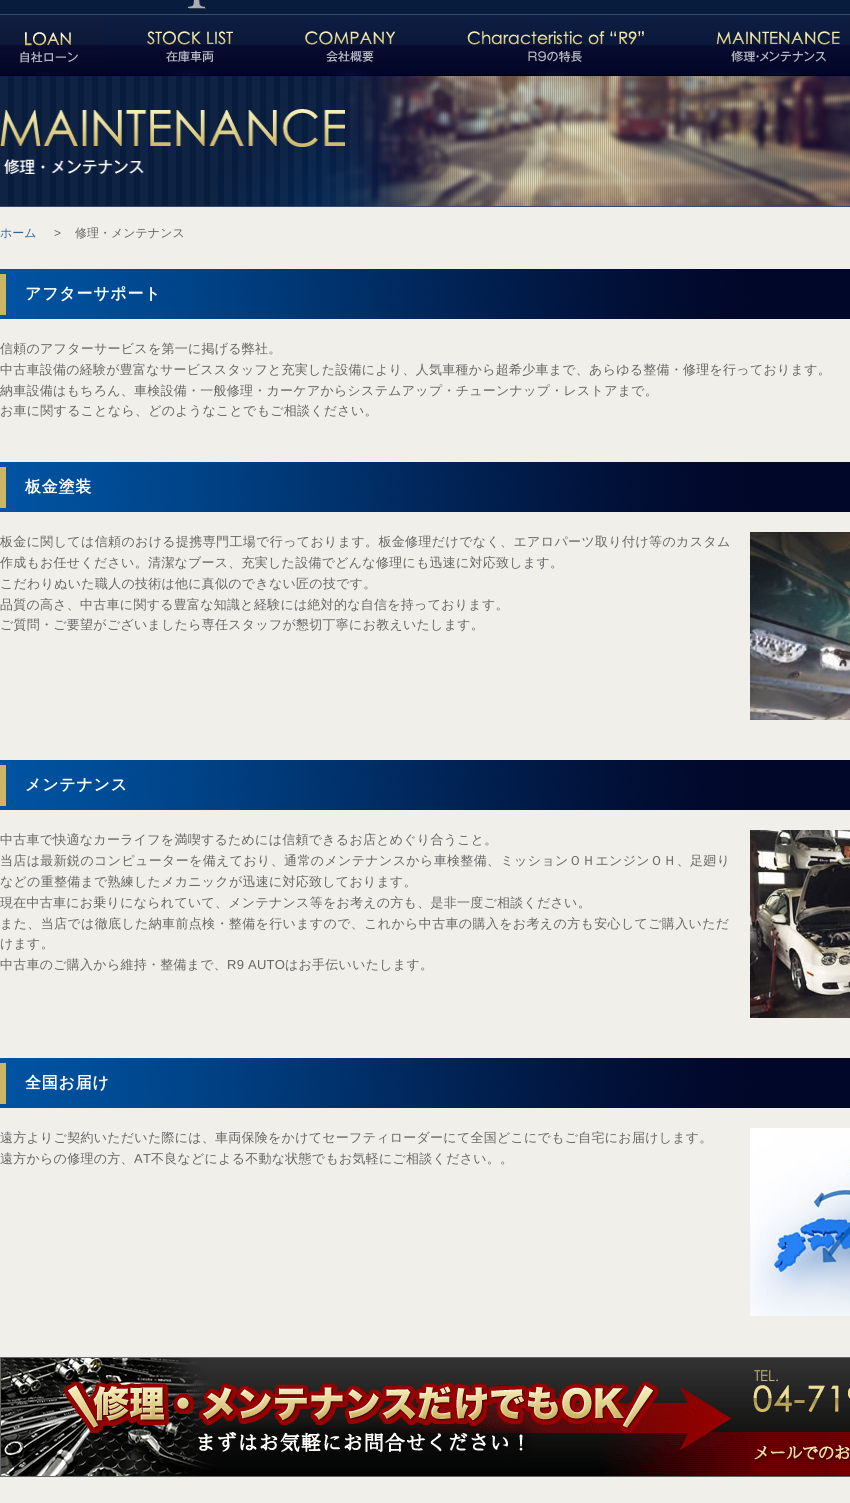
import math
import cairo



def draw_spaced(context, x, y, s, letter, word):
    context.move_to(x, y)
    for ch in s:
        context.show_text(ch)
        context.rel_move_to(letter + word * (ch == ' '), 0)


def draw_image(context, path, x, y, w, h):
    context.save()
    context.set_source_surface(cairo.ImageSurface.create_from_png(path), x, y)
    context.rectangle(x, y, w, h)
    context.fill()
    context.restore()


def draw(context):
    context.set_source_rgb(240 / 255, 239 / 255, 234 / 255)
    context.paint()
    context.set_source_rgb(8 / 255, 28 / 255, 61 / 255)
    context.rectangle(0, 0, 850, 206)
    context.fill()
    draw_image(context, "images/1.png", 212, 81, 264, 125)
    draw_image(context, "images/2.png", 188, 0, 18, 9)
    draw_image(context, "images/3.png", 0, 14, 850, 62)
    draw_image(context, "images/4.png", 0, 15, 104, 61)
    draw_image(context, "images/5.png", 147, 31, 86, 45)
    draw_image(context, "images/6.png", 305, 31, 91, 45)
    draw_image(context, "images/7.png", 467, 31, 177, 45)
    draw_image(context, "images/8.png", 716, 31, 124, 45)
    draw_image(context, "images/9.png", 0, 76, 470, 130)
    context.set_source_rgb(59 / 255, 73 / 255, 106 / 255)
    context.rectangle(0, 206, 850, 1)
    context.fill()
    draw_image(context, "images/10.png", 327, 76, 523, 130)
    draw_image(context, "images/11.png", 0, 109, 345, 65)
    draw_image(context, "images/12.png", 0, 269, 850, 50)
    draw_image(context, "images/12.png", 0, 462, 850, 50)
    draw_image(context, "images/13.png", 750, 532, 100, 188)
    draw_image(context, "images/12.png", 0, 760, 850, 50)
    draw_image(context, "images/14.png", 750, 830, 100, 188)
    draw_image(context, "images/12.png", 0, 1058, 850, 50)
    draw_image(context, "images/15.png", 750, 1128, 100, 188)
    draw_image(context, "images/16.png", 0, 1357, 850, 120)
    context.select_font_face("WenQuanYi Zen Hei Medium")
    context.set_font_size(12)
    context.set_source_rgb(50 / 255, 100 / 255, 155 / 255)
    context.move_to(0, 237)
    context.show_text("ホーム")
    context.select_font_face("Liberation Sans")
    context.set_source_rgb(102 / 255, 102 / 255, 102 / 255)
    context.move_to(54, 237)
    context.show_text(">")
    context.select_font_face("WenQuanYi Zen Hei Medium")
    context.move_to(75, 237)
    context.show_text("修理・メンテナンス")
    context.select_font_face("WenQuanYi Zen Hei", cairo.FontSlant.NORMAL, cairo.FontWeight.BOLD)
    context.set_font_size(16)
    context.set_source_rgb(1, 1, 1)
    draw_spaced(context, 25, 299, "アフターサポート", 0.75, 0)
    context.select_font_face("WenQuanYi Zen Hei Medium")
    context.set_font_size(13)
    context.set_source_rgb(102 / 255, 102 / 255, 102 / 255)
    draw_spaced(context, 0, 353, "信頼のアフターサービスを第一に掲げる弊社。", 0.25, 0)
    draw_spaced(context, 0, 374, "中古車設備の経験が豊富なサービススタッフと充実した設備により、人気車種から超希少車まで、あらゆる整備・修理を行っております。", 0.25, 0)
    draw_spaced(context, 0, 395, "納車設備はもちろん、車検設備・一般修理・カーケアからシステムアップ・チューンナップ・レストアまで。", 0.25, 0)
    draw_spaced(context, 0, 415, "お車に関することなら、どのようなことでもご相談ください。", 0.25, 0)
    context.select_font_face("WenQuanYi Zen Hei", cairo.FontSlant.NORMAL, cairo.FontWeight.BOLD)
    context.set_font_size(16)
    context.set_source_rgb(1, 1, 1)
    draw_spaced(context, 25, 492, "板金塗装", 0.75, 0)
    context.select_font_face("WenQuanYi Zen Hei Medium")
    context.set_font_size(13)
    context.set_source_rgb(102 / 255, 102 / 255, 102 / 255)
    draw_spaced(context, 0, 546, "板金に関しては信頼のおける提携専門工場で行っております。板金修理だけでなく、エアロパーツ取り付け等のカスタム", 0.35, 0)
    draw_spaced(context, 0, 567, "作成もお任せください。清潔なブース、充実した設備でどんな修理にも迅速に対応致します。", 0.25, 0)
    draw_spaced(context, 0, 588, "こだわりぬいた職人の技術は他に真似のできない匠の技です。", 0.25, 0)
    draw_spaced(context, 0, 609, "品質の高さ、中古車に関する豊富な知識と経験には絶対的な自信を持っております。", 0.25, 0)
    draw_spaced(context, 0, 629, "ご質問・ご要望がございましたら専任スタッフが懇切丁寧にお教えいたします。", 0.25, 0)
    context.select_font_face("WenQuanYi Zen Hei", cairo.FontSlant.NORMAL, cairo.FontWeight.BOLD)
    context.set_font_size(16)
    context.set_source_rgb(1, 1, 1)
    draw_spaced(context, 25, 790, "メンテナンス", 0.75, 0)
    context.select_font_face("WenQuanYi Zen Hei Medium")
    context.set_font_size(13)
    context.set_source_rgb(102 / 255, 102 / 255, 102 / 255)
    draw_spaced(context, 0, 844, "中古車で快適なカーライフを満喫するためには信頼できるお店とめぐり合うこと。", 0.25, 0)
    draw_spaced(context, 0, 865, "当店は最新鋭のコンピューターを備えており、通常のメンテナンスから車検整備、ミッションＯＨエンジンＯＨ、足廻り", 0.35, 0)
    draw_spaced(context, 0, 886, "などの重整備まで熟練したメカニックが迅速に対応致しております。", 0.25, 0)
    draw_spaced(context, 0, 907, "現在中古車にお乗りになられていて、メンテナンス等をお考えの方も、是非一度ご相談ください。", 0.25, 0)
    draw_spaced(context, 0, 928, "また、当店では徹底した納車前点検・整備を行いますので、これから中古車の購入をお考えの方も安心してご購入いただ", 0.35, 0)
    draw_spaced(context, 0, 948, "けます。", 0.25, 0)
    draw_spaced(context, 0, 969, "中古車のご購入から維持・整備まで、", 0.25, 0)
    context.select_font_face("Liberation Sans")
    draw_spaced(context, 227, 969, "R9 AUTO", 0.25, 0)
    context.select_font_face("WenQuanYi Zen Hei Medium")
    draw_spaced(context, 285, 969, "はお手伝いいたします。", 0.25, 0)
    context.select_font_face("WenQuanYi Zen Hei", cairo.FontSlant.NORMAL, cairo.FontWeight.BOLD)
    context.set_font_size(16)
    context.set_source_rgb(1, 1, 1)
    draw_spaced(context, 25, 1088, "全国お届け", 0.75, 0)
    context.select_font_face("WenQuanYi Zen Hei Medium")
    context.set_font_size(13)
    context.set_source_rgb(102 / 255, 102 / 255, 102 / 255)
    draw_spaced(context, 0, 1142, "遠方よりご契約いただいた際には、車両保険をかけてセーフティローダーにて全国どこにでもご自宅にお届けします。", 0.25, 0)
    draw_spaced(context, 0, 1163, "遠方からの修理の方、", 0.25, 0)
    context.select_font_face("Liberation Sans")
    draw_spaced(context, 134, 1163, "AT", 0.25, 0)
    context.select_font_face("WenQuanYi Zen Hei Medium")
    draw_spaced(context, 151, 1163, "不良などによる不動な状態でもお気軽にご相談ください。。", 0.25, 0)


surface = cairo.ImageSurface(cairo.Format.RGB24, 850, 1503)
context = cairo.Context(surface)
options = cairo.FontOptions()
options.set_hint_metrics(cairo.HintMetrics.OFF)
options.set_hint_style(cairo.HintStyle.NONE)
context.set_font_options(options)
context.set_miter_limit(4)
draw(context)
surface.write_to_png("out.png")
